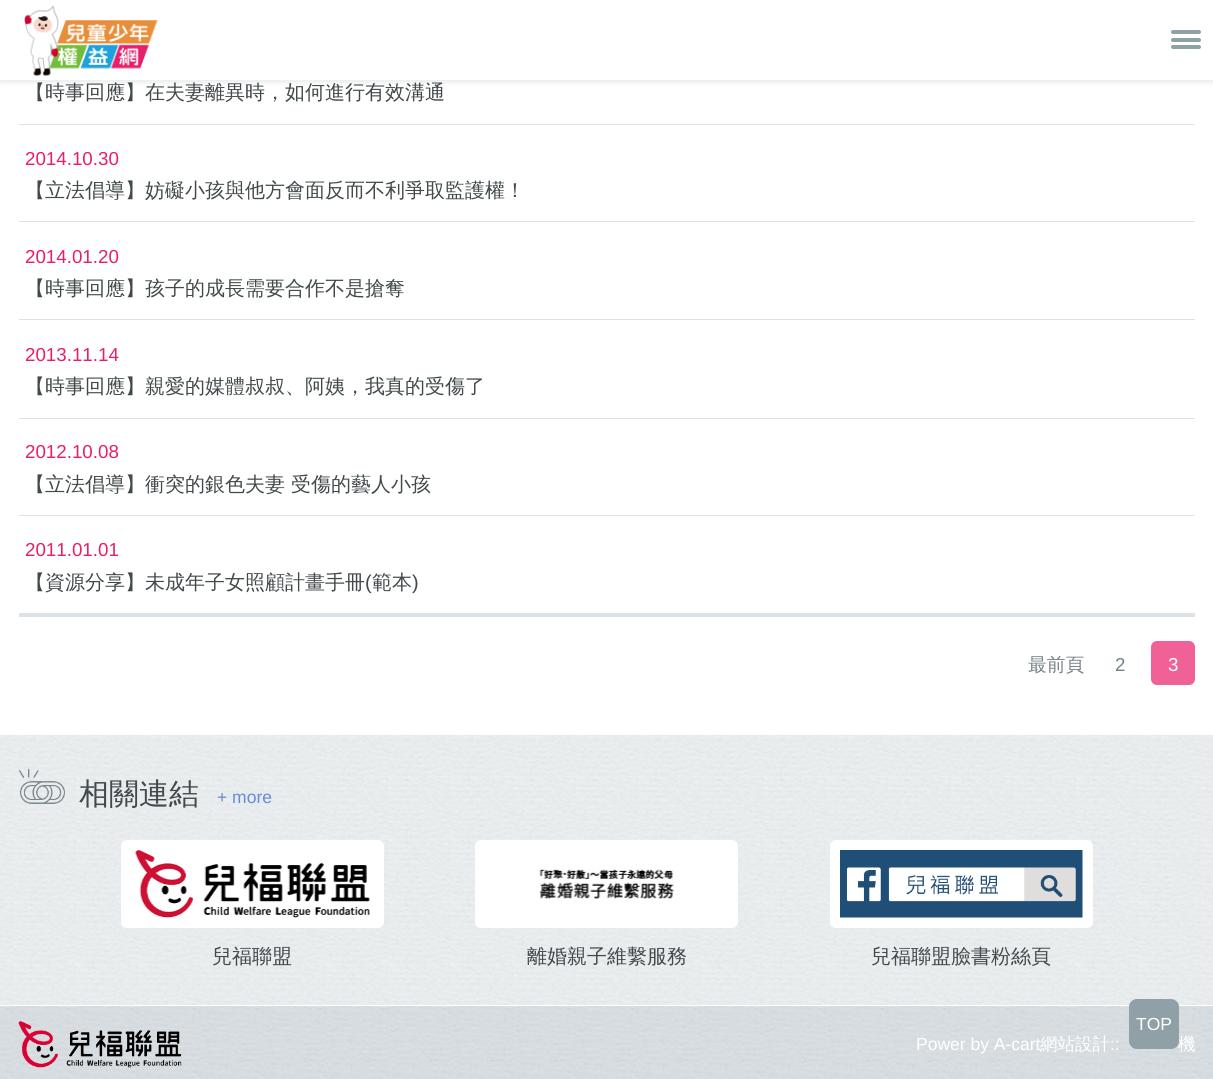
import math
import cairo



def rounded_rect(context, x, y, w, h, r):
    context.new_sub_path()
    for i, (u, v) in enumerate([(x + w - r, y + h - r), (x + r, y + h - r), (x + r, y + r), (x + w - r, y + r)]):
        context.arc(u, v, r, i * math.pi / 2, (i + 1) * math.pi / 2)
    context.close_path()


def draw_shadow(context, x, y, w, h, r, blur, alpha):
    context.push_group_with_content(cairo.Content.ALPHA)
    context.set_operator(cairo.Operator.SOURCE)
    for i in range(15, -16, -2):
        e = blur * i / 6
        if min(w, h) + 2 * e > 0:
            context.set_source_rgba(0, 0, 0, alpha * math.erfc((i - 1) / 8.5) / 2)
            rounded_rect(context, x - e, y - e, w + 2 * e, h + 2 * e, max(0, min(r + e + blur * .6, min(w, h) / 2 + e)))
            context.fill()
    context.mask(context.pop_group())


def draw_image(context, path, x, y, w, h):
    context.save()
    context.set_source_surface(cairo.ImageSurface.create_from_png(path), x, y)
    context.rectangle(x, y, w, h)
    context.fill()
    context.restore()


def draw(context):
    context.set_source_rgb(1, 1, 1)
    context.paint()
    context.set_source_rgb(66 / 255, 73 / 255, 75 / 255)
    draw_shadow(context, 0, 3, 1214, 80, 0, 2, 0.1)
    context.set_source_rgb(1, 1, 1)
    context.rectangle(0, 1, 1213, 79)
    context.fill()
    draw_image(context, "images/1.png", 24, 5, 134, 72)
    context.set_source_rgb(143 / 255, 160 / 255, 167 / 255)
    rounded_rect(context, 1171, 30, 30, 4, 2)
    context.fill()
    rounded_rect(context, 1171, 38, 30, 4, 2)
    context.fill()
    rounded_rect(context, 1171, 45, 30, 4, 2)
    context.fill()
    context.set_source_rgb(220 / 255, 226 / 255, 229 / 255)
    context.rectangle(19, 124, 1176, 1)
    context.fill()
    context.rectangle(19, 221, 1176, 1)
    context.fill()
    context.rectangle(19, 319, 1176, 1)
    context.fill()
    context.rectangle(19, 418, 1176, 1)
    context.fill()
    context.rectangle(19, 515, 1176, 1)
    context.fill()
    context.rectangle(19, 613, 1176, 4)
    context.fill()
    context.set_source_rgb(239 / 255, 97 / 255, 151 / 255)
    rounded_rect(context, 1151, 641, 44, 44, 6)
    context.fill()
    draw_image(context, "images/2.png", 0, 735, 1213, 270)
    draw_image(context, "images/3.png", 18, 768, 47, 36)
    context.set_source_rgb(1, 1, 1)
    rounded_rect(context, 126, 845, 253, 78, 1)
    context.fill_preserve()
    context.set_line_width(10)
    context.stroke()
    draw_image(context, "images/4.png", 134, 850, 236, 68)
    rounded_rect(context, 480, 845, 253, 78, 1)
    context.fill_preserve()
    context.stroke()
    draw_image(context, "images/5.png", 539, 869, 135, 30)
    rounded_rect(context, 835, 845, 253, 78, 1)
    context.fill_preserve()
    context.stroke()
    draw_image(context, "images/6.png", 840, 850, 243, 68)
    draw_image(context, "images/7.png", 0, 1006, 1213, 73)
    draw_image(context, "images/8.png", 18, 1021, 164, 47)
    context.select_font_face("WenQuanYi Zen Hei Medium")
    context.set_font_size(20)
    context.set_source_rgb(66 / 255, 73 / 255, 75 / 255)
    context.move_to(25, 99)
    context.show_text("【時事回應】在夫妻離異時，如何進行有效溝通")
    context.select_font_face("Liberation Sans")
    context.set_font_size(18.75)
    context.set_source_rgb(232 / 255, 30 / 255, 107 / 255)
    context.move_to(25, 165)
    context.show_text("2014.10.30")
    context.select_font_face("WenQuanYi Zen Hei Medium")
    context.set_font_size(20)
    context.set_source_rgb(66 / 255, 73 / 255, 75 / 255)
    context.move_to(25, 197)
    context.show_text("【立法倡導】妨礙小孩與他方會面反而不利爭取監護權！")
    context.select_font_face("Liberation Sans")
    context.set_font_size(18.75)
    context.set_source_rgb(232 / 255, 30 / 255, 107 / 255)
    context.move_to(25, 263)
    context.show_text("2014.01.20")
    context.select_font_face("WenQuanYi Zen Hei Medium")
    context.set_font_size(20)
    context.set_source_rgb(66 / 255, 73 / 255, 75 / 255)
    context.move_to(25, 295)
    context.show_text("【時事回應】孩子的成長需要合作不是搶奪")
    context.select_font_face("Liberation Sans")
    context.set_font_size(18.75)
    context.set_source_rgb(232 / 255, 30 / 255, 107 / 255)
    context.move_to(25, 361)
    context.show_text("2013.11.14")
    context.select_font_face("WenQuanYi Zen Hei Medium")
    context.set_font_size(20)
    context.set_source_rgb(66 / 255, 73 / 255, 75 / 255)
    context.move_to(25, 393)
    context.show_text("【時事回應】親愛的媒體叔叔、阿姨，我真的受傷了")
    context.select_font_face("Liberation Sans")
    context.set_font_size(18.75)
    context.set_source_rgb(232 / 255, 30 / 255, 107 / 255)
    context.move_to(25, 458)
    context.show_text("2012.10.08")
    context.select_font_face("WenQuanYi Zen Hei Medium")
    context.set_font_size(20)
    context.set_source_rgb(66 / 255, 73 / 255, 75 / 255)
    context.move_to(25, 491)
    context.show_text("【立法倡導】衝突的銀色夫妻 受傷的藝人小孩")
    context.select_font_face("Liberation Sans")
    context.set_font_size(18.75)
    context.set_source_rgb(232 / 255, 30 / 255, 107 / 255)
    context.move_to(25, 556)
    context.show_text("2011.01.01")
    context.select_font_face("WenQuanYi Zen Hei Medium")
    context.set_font_size(20)
    context.set_source_rgb(66 / 255, 73 / 255, 75 / 255)
    context.move_to(25, 589)
    context.show_text("【資源分享】未成年子女照顧計畫手冊")
    context.select_font_face("Liberation Sans")
    context.move_to(365, 589)
    context.show_text("(")
    context.select_font_face("WenQuanYi Zen Hei Medium")
    context.move_to(372, 589)
    context.show_text("範本")
    context.select_font_face("Liberation Sans")
    context.move_to(412, 589)
    context.show_text(")")
    context.select_font_face("WenQuanYi Zen Hei Medium")
    context.set_font_size(18.75)
    context.set_source_rgb(118 / 255, 131 / 255, 137 / 255)
    context.move_to(1028, 671)
    context.show_text("最前頁")
    context.select_font_face("Liberation Sans")
    context.move_to(1115, 671)
    context.show_text("2")
    context.set_source_rgb(1, 1, 1)
    context.move_to(1168, 671)
    context.show_text("3")
    context.select_font_face("WenQuanYi Zen Hei Medium")
    context.set_font_size(30)
    context.set_source_rgb(66 / 255, 73 / 255, 75 / 255)
    context.move_to(79, 804)
    context.show_text("相關連結")
    context.select_font_face("Liberation Sans")
    context.set_font_size(17.5)
    context.set_source_rgb(101 / 255, 140 / 255, 216 / 255)
    context.move_to(217, 803)
    context.show_text("+ more")
    context.select_font_face("WenQuanYi Zen Hei Medium")
    context.set_font_size(20)
    context.set_source_rgb(66 / 255, 73 / 255, 75 / 255)
    context.move_to(212, 963)
    context.show_text("兒福聯盟")
    context.move_to(527, 963)
    context.show_text("離婚親子維繫服務")
    context.move_to(871, 963)
    context.show_text("兒福聯盟臉書粉絲頁")
    context.select_font_face("Liberation Sans")
    context.set_font_size(17.5)
    context.set_source_rgb(1, 1, 1)
    context.move_to(916, 1050)
    context.show_text("Power by A-cart")
    context.select_font_face("WenQuanYi Zen Hei Medium")
    context.move_to(1040, 1050)
    context.show_text("網站設計")
    context.select_font_face("Liberation Sans")
    context.move_to(1110, 1050)
    context.show_text("::")
    context.select_font_face("WenQuanYi Zen Hei Medium")
    context.move_to(1178, 1050)
    context.show_text("機")
    context.set_source_rgb(143 / 255, 160 / 255, 167 / 255)
    rounded_rect(context, 1129, 999, 50, 50, 8)
    context.fill()
    context.select_font_face("Liberation Sans")
    context.set_source_rgb(1, 1, 1)
    context.move_to(1136, 1030)
    context.show_text("TOP")


surface = cairo.ImageSurface(cairo.Format.RGB24, 1213, 1079)
context = cairo.Context(surface)
options = cairo.FontOptions()
options.set_hint_metrics(cairo.HintMetrics.OFF)
options.set_hint_style(cairo.HintStyle.NONE)
context.set_font_options(options)
context.set_miter_limit(4)
draw(context)
surface.write_to_png("out.png")
